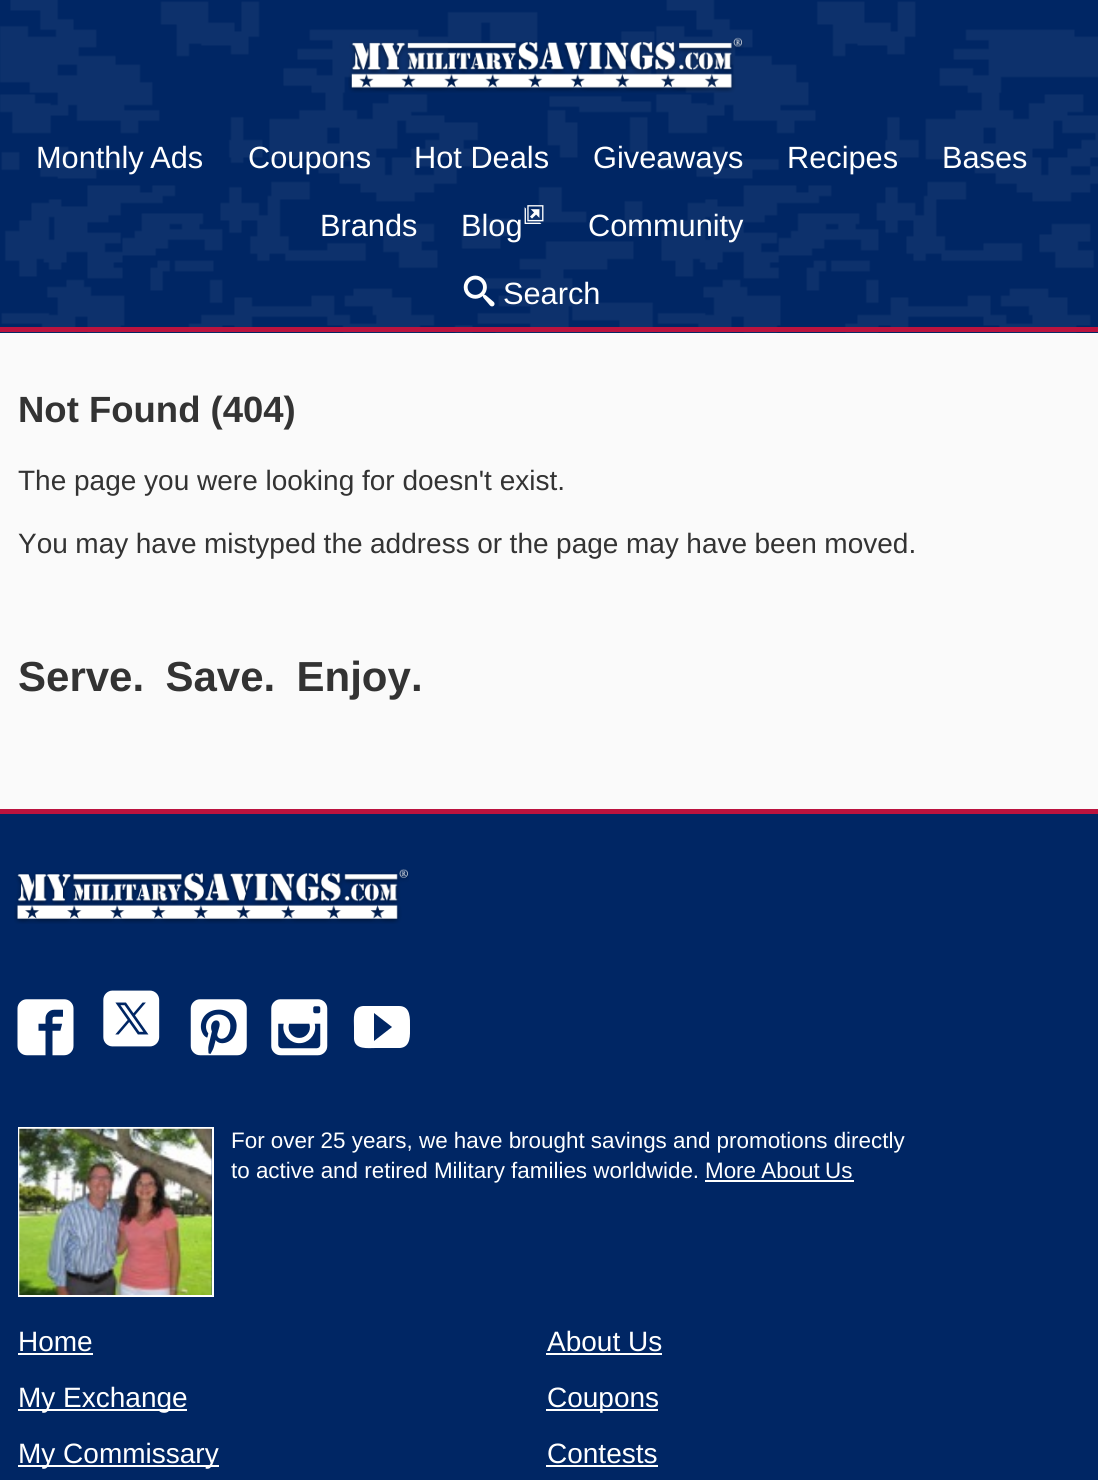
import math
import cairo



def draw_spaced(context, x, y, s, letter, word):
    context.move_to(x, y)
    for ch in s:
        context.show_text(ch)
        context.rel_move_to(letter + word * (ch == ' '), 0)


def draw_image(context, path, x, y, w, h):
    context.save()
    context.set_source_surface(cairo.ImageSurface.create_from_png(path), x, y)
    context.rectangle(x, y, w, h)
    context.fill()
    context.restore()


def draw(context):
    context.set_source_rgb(250 / 255, 250 / 255, 250 / 255)
    context.paint()
    context.set_source_rgb(0, 38 / 255, 100 / 255)
    context.rectangle(0, 0, 1098, 333)
    context.fill()
    draw_image(context, "images/1.png", 0, 0, 1098, 333)
    context.set_source_rgb(187 / 255, 19 / 255, 62 / 255)
    context.rectangle(0, 327, 1098, 5)
    context.fill()
    draw_image(context, "images/2.png", 348, 37, 396, 56)
    draw_image(context, "images/3.png", 524, 205, 20, 19)
    draw_image(context, "images/4.png", 463, 275, 32, 32)
    context.set_source_rgb(0, 38 / 255, 100 / 255)
    context.rectangle(0, 814, 1098, 666)
    context.fill()
    context.set_source_rgb(187 / 255, 19 / 255, 62 / 255)
    context.rectangle(0, 809, 1098, 5)
    context.fill()
    draw_image(context, "images/5.png", 14, 869, 395, 55)
    draw_image(context, "images/6.png", 17, 999, 57, 57)
    draw_image(context, "images/7.png", 103, 990, 57, 57)
    draw_image(context, "images/8.png", 190, 999, 57, 57)
    draw_image(context, "images/9.png", 271, 999, 57, 57)
    context.set_source_rgb(1, 1, 1)
    context.new_path()
    context.move_to(399, 1006)
    context.line_to(363, 1006)
    context.curve_to(352, 1007, 354, 1019, 354, 1027)
    context.line_to(354, 1039)
    context.curve_to(355, 1050, 368, 1048, 376, 1048)
    context.line_to(400, 1048)
    context.curve_to(411, 1047, 410, 1035, 410, 1027)
    context.curve_to(410, 1019, 411, 1006, 399, 1006)
    context.close_path()
    context.move_to(374, 1041)
    context.line_to(374, 1013)
    context.line_to(392, 1027)
    context.close_path()
    context.fill()
    context.rectangle(19, 1128, 194, 168)
    context.stroke()
    draw_image(context, "images/10.png", 19, 1128, 193, 167)
    context.rectangle(705, 1180, 149, 2)
    context.fill()
    context.rectangle(18, 1353, 75, 2)
    context.fill()
    context.rectangle(546, 1353, 116, 2)
    context.fill()
    context.rectangle(18, 1409, 169, 2)
    context.fill()
    context.rectangle(546, 1409, 112, 2)
    context.fill()
    context.rectangle(18, 1465, 201, 2)
    context.fill()
    context.rectangle(546, 1465, 112, 2)
    context.fill()
    context.select_font_face("Liberation Sans")
    context.set_font_size(30.75)
    draw_spaced(context, 36, 168, "Monthly Ads", 0, -2)
    context.move_to(248, 168)
    context.show_text("Coupons")
    context.move_to(414, 168)
    context.show_text("Hot Deals")
    context.move_to(593, 168)
    context.show_text("Giveaways")
    context.move_to(787, 168)
    context.show_text("Recipes")
    context.move_to(942, 168)
    context.show_text("Bases")
    context.move_to(320, 236)
    context.show_text("Brands")
    context.move_to(461, 236)
    context.show_text("Blog")
    context.move_to(588, 236)
    context.show_text("Community")
    context.move_to(503, 304)
    context.show_text("Search")
    context.select_font_face("Liberation Sans", cairo.FontSlant.NORMAL, cairo.FontWeight.BOLD)
    context.set_font_size(36.5)
    context.set_source_rgb(51 / 255, 51 / 255, 51 / 255)
    context.move_to(18, 422)
    context.show_text("Not Found (404)")
    context.select_font_face("Liberation Sans")
    context.set_font_size(28)
    context.move_to(18, 490)
    context.show_text("The page you were looking for doesn't exist.")
    draw_spaced(context, 18, 553, "You may have mistyped the address or the page may have been moved.", 0, -0.25)
    context.select_font_face("Liberation Sans", cairo.FontSlant.NORMAL, cairo.FontWeight.BOLD)
    context.set_font_size(42)
    draw_spaced(context, 18, 691, "Serve.  Save.  Enjoy.", 0, -1)
    context.select_font_face("Liberation Sans")
    context.set_font_size(22.4)
    context.set_source_rgb(1, 1, 1)
    context.move_to(231, 1148)
    context.show_text("For over 25 years, we have brought savings and promotions directly")
    context.move_to(231, 1178)
    context.show_text("to active and retired Military families worldwide.")
    draw_spaced(context, 705, 1178, "More About Us", 0, -1)
    context.set_font_size(28)
    context.move_to(18, 1351)
    context.show_text("Home")
    context.move_to(547, 1351)
    context.show_text("About Us")
    context.move_to(18, 1407)
    context.show_text("My Exchange")
    context.move_to(547, 1407)
    context.show_text("Coupons")
    context.move_to(18, 1463)
    context.show_text("My Commissary")
    context.move_to(547, 1463)
    context.show_text("Contests")


surface = cairo.ImageSurface(cairo.Format.RGB24, 1098, 1480)
context = cairo.Context(surface)
options = cairo.FontOptions()
options.set_hint_metrics(cairo.HintMetrics.OFF)
options.set_hint_style(cairo.HintStyle.NONE)
context.set_font_options(options)
context.set_miter_limit(4)
draw(context)
surface.write_to_png("out.png")
